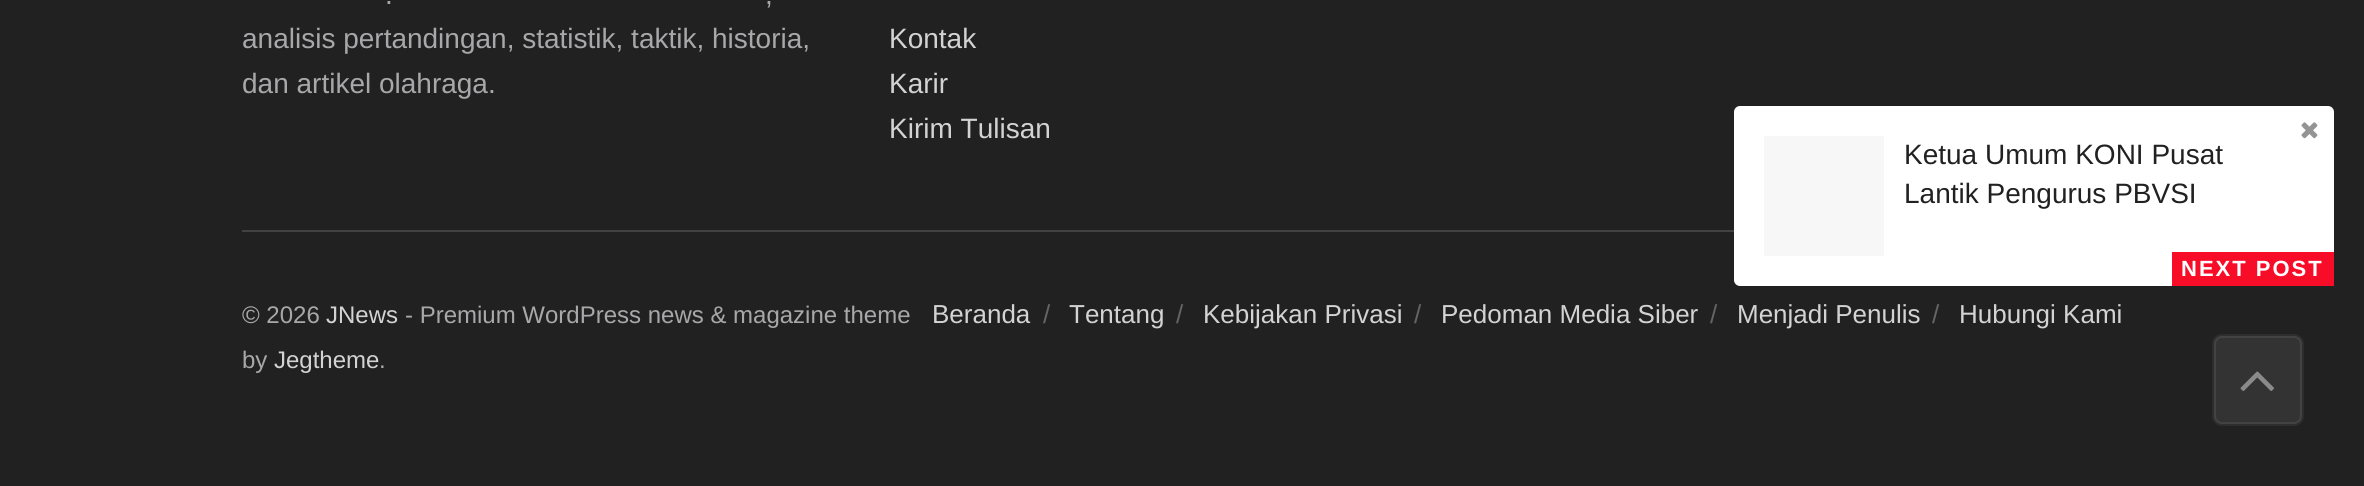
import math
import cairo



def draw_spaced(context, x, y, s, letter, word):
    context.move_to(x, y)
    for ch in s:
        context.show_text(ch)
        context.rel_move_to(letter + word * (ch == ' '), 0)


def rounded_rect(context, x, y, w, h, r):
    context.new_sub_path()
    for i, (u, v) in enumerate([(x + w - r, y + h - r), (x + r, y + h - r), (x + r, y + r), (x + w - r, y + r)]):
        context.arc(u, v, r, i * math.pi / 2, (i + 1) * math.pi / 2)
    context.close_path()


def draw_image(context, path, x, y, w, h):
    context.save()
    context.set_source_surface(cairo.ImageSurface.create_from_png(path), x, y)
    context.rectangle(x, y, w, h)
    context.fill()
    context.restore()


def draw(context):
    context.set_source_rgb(33 / 255, 33 / 255, 33 / 255)
    context.paint()
    context.set_source_rgb(66 / 255, 66 / 255, 66 / 255)
    context.rectangle(242, 230, 1492, 2)
    context.fill()
    context.set_source_rgb(1, 1, 1)
    rounded_rect(context, 1734, 106, 600, 180, 6)
    context.fill()
    draw_image(context, "images/1.png", 2301, 122, 17, 17)
    context.set_source_rgb(247 / 255, 247 / 255, 247 / 255)
    context.rectangle(1764, 136, 120, 120)
    context.fill()
    context.set_source_rgb(247 / 255, 13 / 255, 40 / 255)
    context.rectangle(2172, 252, 162, 34)
    context.fill()
    context.set_source_rgb(51 / 255, 51 / 255, 51 / 255)
    rounded_rect(context, 2212, 334, 92, 92, 10)
    context.fill()
    rounded_rect(context, 2215, 337, 86, 86, 7)
    context.set_source_rgb(67 / 255, 67 / 255, 67 / 255)
    context.stroke()
    rounded_rect(context, 2213, 335, 90, 90, 9)
    context.set_source_rgba(7 / 255, 7 / 255, 7 / 255, 0.11)
    context.stroke()
    draw_image(context, "images/2.png", 2240, 371, 34, 20)
    context.select_font_face("Liberation Sans")
    context.set_font_size(28)
    context.set_source_rgb(168 / 255, 168 / 255, 170 / 255)
    context.move_to(385, 4)
    context.show_text(".")
    context.move_to(765, 4)
    context.show_text(",")
    context.move_to(242, 48)
    context.show_text("analisis pertandingan, statistik, taktik, historia,")
    context.move_to(242, 93)
    context.show_text("dan artikel olahraga.")
    context.set_source_rgb(211 / 255, 211 / 255, 211 / 255)
    context.move_to(889, 48)
    context.show_text("Kontak")
    context.move_to(889, 93)
    context.show_text("Karir")
    context.move_to(889, 138)
    context.show_text("Kirim Tulisan")
    context.set_font_size(24)
    context.set_source_rgb(168 / 255, 168 / 255, 170 / 255)
    context.move_to(242, 323)
    context.show_text("© 2026")
    context.set_source_rgb(211 / 255, 211 / 255, 211 / 255)
    context.move_to(326, 323)
    context.show_text("JNews")
    context.set_source_rgb(168 / 255, 168 / 255, 170 / 255)
    context.move_to(405, 323)
    context.show_text("- Premium WordPress news & magazine theme")
    context.move_to(242, 368)
    context.show_text("by")
    context.set_source_rgb(211 / 255, 211 / 255, 211 / 255)
    context.move_to(274, 368)
    context.show_text("Jegtheme")
    context.set_source_rgb(168 / 255, 168 / 255, 170 / 255)
    context.move_to(379, 368)
    context.show_text(".")
    context.set_font_size(26)
    context.set_source_rgb(211 / 255, 211 / 255, 211 / 255)
    context.move_to(932, 323)
    context.show_text("Beranda")
    context.set_source_rgb(100 / 255, 100 / 255, 100 / 255)
    context.move_to(1043, 323)
    context.show_text("/")
    context.set_source_rgb(211 / 255, 211 / 255, 211 / 255)
    context.move_to(1069, 323)
    context.show_text("Tentang")
    context.set_source_rgb(100 / 255, 100 / 255, 100 / 255)
    context.move_to(1176, 323)
    context.show_text("/")
    context.set_source_rgb(211 / 255, 211 / 255, 211 / 255)
    context.move_to(1203, 323)
    context.show_text("Kebijakan Privasi")
    context.set_source_rgb(100 / 255, 100 / 255, 100 / 255)
    context.move_to(1414, 323)
    context.show_text("/")
    context.set_source_rgb(211 / 255, 211 / 255, 211 / 255)
    context.move_to(1441, 323)
    context.show_text("Pedoman Media Siber")
    context.set_source_rgb(100 / 255, 100 / 255, 100 / 255)
    context.move_to(1710, 323)
    context.show_text("/")
    context.set_source_rgb(211 / 255, 211 / 255, 211 / 255)
    context.move_to(1737, 323)
    context.show_text("Menjadi Penulis")
    context.set_source_rgb(100 / 255, 100 / 255, 100 / 255)
    context.move_to(1932, 323)
    context.show_text("/")
    context.set_source_rgb(211 / 255, 211 / 255, 211 / 255)
    context.move_to(1959, 323)
    context.show_text("Hubungi Kami")
    context.set_font_size(28)
    context.set_source_rgb(33 / 255, 33 / 255, 33 / 255)
    context.move_to(1904, 164)
    context.show_text("Ketua Umum KONI Pusat")
    context.move_to(1904, 203)
    context.show_text("Lantik Pengurus PBVSI")
    context.select_font_face("Liberation Sans", cairo.FontSlant.NORMAL, cairo.FontWeight.BOLD)
    context.set_font_size(22)
    context.set_source_rgb(1, 1, 1)
    draw_spaced(context, 2181, 276, "NEXT POST", 2, 0)


surface = cairo.ImageSurface(cairo.Format.RGB24, 2364, 486)
context = cairo.Context(surface)
options = cairo.FontOptions()
options.set_hint_metrics(cairo.HintMetrics.OFF)
options.set_hint_style(cairo.HintStyle.NONE)
context.set_font_options(options)
context.set_miter_limit(4)
draw(context)
surface.write_to_png("out.png")
